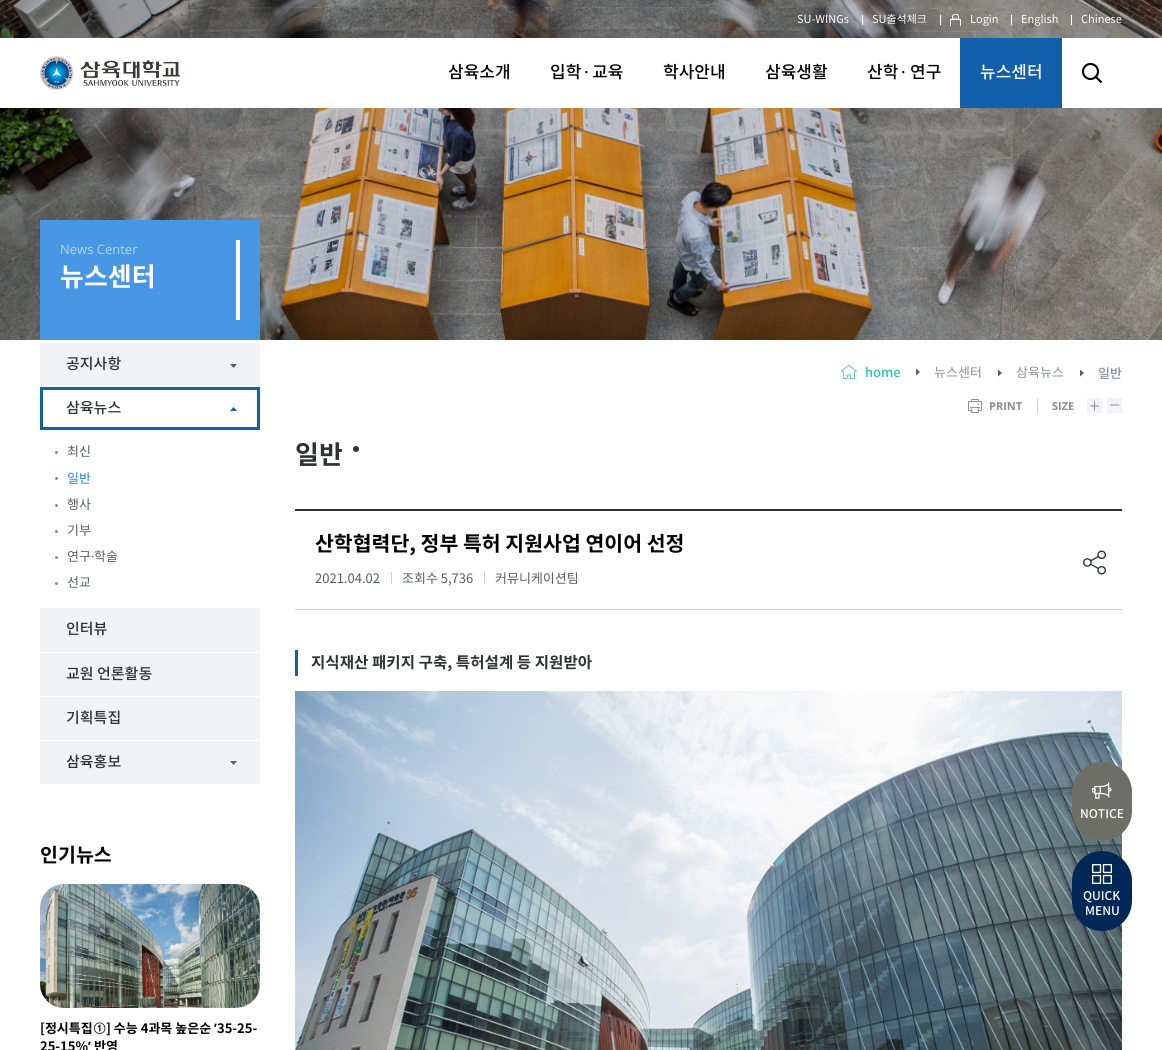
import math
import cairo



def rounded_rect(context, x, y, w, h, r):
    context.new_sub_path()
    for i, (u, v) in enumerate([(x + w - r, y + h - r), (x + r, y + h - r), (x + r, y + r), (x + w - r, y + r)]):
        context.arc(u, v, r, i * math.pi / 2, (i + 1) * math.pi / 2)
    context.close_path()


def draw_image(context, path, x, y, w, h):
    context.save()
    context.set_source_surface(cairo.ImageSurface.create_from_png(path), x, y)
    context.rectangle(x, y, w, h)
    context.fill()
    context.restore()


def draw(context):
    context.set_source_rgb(1, 1, 1)
    context.paint()
    draw_image(context, "images/3.png", 0, 0, 1162, 340)
    draw_image(context, "images/4.png", 0, 0, 1162, 340)
    context.set_source_rgb(1, 1, 1)
    context.rectangle(862, 15, 1, 10)
    context.fill()
    context.rectangle(940, 15, 1, 10)
    context.fill()
    draw_image(context, "images/1.png", 950, 14, 11, 12)
    context.rectangle(1011, 15, 1, 10)
    context.fill()
    context.rectangle(1071, 15, 1, 10)
    context.fill()
    context.rectangle(0, 38, 1162, 70)
    context.fill()
    draw_image(context, "images/2.png", 40, 56, 140, 34)
    context.set_source_rgb(18 / 255, 95 / 255, 172 / 255)
    context.rectangle(960, 38, 102, 70)
    context.fill()
    context.arc(1090.5, 71.5, 7.5, 0, 2 * math.pi)
    context.set_source_rgb(0, 0, 0)
    context.set_line_width(2.1)
    context.stroke()
    context.new_path()
    context.move_to(1095, 76)
    context.line_to(1101.5, 82.5)
    context.stroke()
    context.set_source_rgb(72 / 255, 151 / 255, 228 / 255)
    context.rectangle(40, 220, 220, 120)
    context.fill()
    context.set_source_rgb(1, 1, 1)
    context.rectangle(236, 240, 4, 80)
    context.fill()
    context.set_source_rgb(241 / 255, 243 / 255, 246 / 255)
    context.rectangle(40, 343, 220, 43)
    context.fill()
    draw_image(context, "images/5.png", 230, 364, 7, 4)
    context.rectangle(41.5, 388.5, 217, 40)
    context.set_source_rgb(18 / 255, 95 / 255, 172 / 255)
    context.set_line_width(3)
    context.stroke()
    draw_image(context, "images/6.png", 230, 407, 7, 4)
    context.set_source_rgb(136 / 255, 142 / 255, 149 / 255)
    context.arc(56.5, 452.5, 1.5, 0, 2 * math.pi)
    context.fill()
    context.set_source_rgb(72 / 255, 151 / 255, 228 / 255)
    context.arc(56.5, 478.5, 1.5, 0, 2 * math.pi)
    context.fill()
    context.set_source_rgb(136 / 255, 142 / 255, 149 / 255)
    context.arc(56.5, 505.5, 1.5, 0, 2 * math.pi)
    context.fill()
    context.arc(56.5, 531.5, 1.5, 0, 2 * math.pi)
    context.fill()
    context.arc(56.5, 557.5, 1.5, 0, 2 * math.pi)
    context.fill()
    context.arc(56.5, 583.5, 1.5, 0, 2 * math.pi)
    context.fill()
    context.set_source_rgb(241 / 255, 243 / 255, 246 / 255)
    context.rectangle(40, 608, 220, 44)
    context.fill()
    context.rectangle(40, 653, 220, 43)
    context.fill()
    context.rectangle(40, 697, 220, 43)
    context.fill()
    context.rectangle(40, 741, 220, 43)
    context.fill()
    draw_image(context, "images/5.png", 230, 761, 7, 4)
    draw_image(context, "images/7.png", 40, 884, 220, 124)
    draw_image(context, "images/8.png", 841, 365, 16, 14)
    draw_image(context, "images/9.png", 916, 368, 4, 8)
    draw_image(context, "images/9.png", 998, 369, 4, 8)
    draw_image(context, "images/9.png", 1080, 369, 4, 8)
    draw_image(context, "images/10.png", 968, 399, 14, 14)
    context.set_source_rgb(204 / 255, 208 / 255, 215 / 255)
    context.rectangle(1037, 399, 1, 14)
    context.fill()
    context.set_source_rgb(241 / 255, 243 / 255, 246 / 255)
    context.rectangle(1087, 398, 15, 15)
    context.fill()
    draw_image(context, "images/11.png", 1090, 401, 9, 10)
    context.rectangle(1107, 398, 15, 15)
    context.fill()
    draw_image(context, "images/12.png", 1110, 404, 10, 2)
    context.set_source_rgb(46 / 255, 50 / 255, 53 / 255)
    context.arc(356, 449, 3, 0, 2 * math.pi)
    context.fill()
    context.rectangle(295, 509, 827, 2)
    context.fill()
    context.set_source_rgb(204 / 255, 208 / 255, 215 / 255)
    context.rectangle(295, 609, 827, 1)
    context.fill()
    context.rectangle(391, 572, 1, 12)
    context.fill()
    context.rectangle(484, 572, 1, 12)
    context.fill()
    draw_image(context, "images/13.png", 1083, 550, 23, 25)
    context.set_source_rgb(18 / 255, 95 / 255, 172 / 255)
    context.rectangle(295, 650, 3, 26)
    context.fill()
    draw_image(context, "images/14.png", 295, 691, 827, 359)
    context.set_source_rgb(109 / 255, 110 / 255, 104 / 255)
    rounded_rect(context, 1072, 762, 60, 79, 30)
    context.fill()
    draw_image(context, "images/15.png", 1092, 782, 20, 17)
    context.set_source_rgb(1 / 255, 40 / 255, 87 / 255)
    rounded_rect(context, 1072, 851, 60, 80, 30)
    context.fill()
    draw_image(context, "images/16.png", 1092, 864, 20, 20)
    context.select_font_face("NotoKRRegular")
    context.set_font_size(11)
    context.set_source_rgb(1, 1, 1)
    context.move_to(797, 23)
    context.show_text("SU-WINGs")
    context.move_to(872, 23)
    context.show_text("SU출석체크")
    context.move_to(970, 23)
    context.show_text("Login")
    context.move_to(1021, 23)
    context.show_text("English")
    context.move_to(1081, 23)
    context.show_text("Chinese")
    context.select_font_face("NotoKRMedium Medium")
    context.set_font_size(17)
    context.set_source_rgb(0, 0, 0)
    context.move_to(448, 78)
    context.show_text("삼육소개")
    context.move_to(550, 78)
    context.show_text("입학")
    context.select_font_face("Open Sans Medium")
    context.move_to(584, 78)
    context.show_text("·")
    context.select_font_face("NotoKRMedium Medium")
    context.move_to(592, 78)
    context.show_text("교육")
    context.move_to(663, 78)
    context.show_text("학사안내")
    context.move_to(765, 78)
    context.show_text("삼육생활")
    context.move_to(867, 78)
    context.show_text("산학")
    context.select_font_face("Open Sans Medium")
    context.move_to(901, 78)
    context.show_text("·")
    context.select_font_face("NotoKRMedium Medium")
    context.move_to(910, 78)
    context.show_text("연구")
    context.set_source_rgb(1, 1, 1)
    context.move_to(980, 78)
    context.show_text("뉴스센터")
    context.select_font_face("Open Sans")
    context.set_font_size(13)
    context.set_source_rgb(182 / 255, 213 / 255, 244 / 255)
    context.move_to(60, 254)
    context.show_text("News Center")
    context.select_font_face("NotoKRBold", cairo.FontSlant.NORMAL, cairo.FontWeight.BOLD)
    context.set_font_size(26)
    context.set_source_rgb(1, 1, 1)
    context.move_to(60, 286)
    context.show_text("뉴스센터")
    context.select_font_face("NotoKRMedium Medium")
    context.set_font_size(15)
    context.set_source_rgb(46 / 255, 50 / 255, 53 / 255)
    context.move_to(66, 369)
    context.show_text("공지사항")
    context.move_to(66, 413)
    context.show_text("삼육뉴스")
    context.select_font_face("NotoKRRegular")
    context.set_font_size(13)
    context.set_source_rgb(87 / 255, 93 / 255, 100 / 255)
    context.move_to(67, 456)
    context.show_text("최신")
    context.select_font_face("NotoKRMedium Medium")
    context.set_source_rgb(72 / 255, 151 / 255, 228 / 255)
    context.move_to(67, 483)
    context.show_text("일반")
    context.select_font_face("NotoKRRegular")
    context.set_source_rgb(87 / 255, 93 / 255, 100 / 255)
    context.move_to(67, 509)
    context.show_text("행사")
    context.move_to(67, 535)
    context.show_text("기부")
    context.move_to(67, 561)
    context.show_text("연구")
    context.select_font_face("Open Sans")
    context.move_to(91, 561)
    context.show_text("·")
    context.select_font_face("NotoKRRegular")
    context.move_to(94, 561)
    context.show_text("학술")
    context.move_to(67, 587)
    context.show_text("선교")
    context.select_font_face("NotoKRMedium Medium")
    context.set_font_size(15)
    context.set_source_rgb(46 / 255, 50 / 255, 53 / 255)
    context.move_to(66, 634)
    context.show_text("인터뷰")
    context.move_to(66, 679)
    context.show_text("교원 언론활동")
    context.move_to(66, 723)
    context.show_text("기획특집")
    context.move_to(66, 767)
    context.show_text("삼육홍보")
    context.select_font_face("NotoKRBold", cairo.FontSlant.NORMAL, cairo.FontWeight.BOLD)
    context.set_font_size(19.5)
    context.set_source_rgb(0, 0, 0)
    context.move_to(40, 862)
    context.show_text("인기뉴스")
    context.set_font_size(13)
    context.move_to(40, 1033)
    context.show_text("[정시특집")
    context.select_font_face("Dotum", cairo.FontSlant.NORMAL, cairo.FontWeight.BOLD)
    context.move_to(93, 1033)
    context.show_text("①")
    context.select_font_face("NotoKRBold", cairo.FontSlant.NORMAL, cairo.FontWeight.BOLD)
    context.move_to(106, 1033)
    context.show_text("] 수능 4과목 높은순")
    context.select_font_face("Open Sans", cairo.FontSlant.NORMAL, cairo.FontWeight.BOLD)
    context.move_to(214, 1033)
    context.show_text("’")
    context.select_font_face("NotoKRBold", cairo.FontSlant.NORMAL, cairo.FontWeight.BOLD)
    context.move_to(217, 1033)
    context.show_text("35-25-")
    context.move_to(40, 1051)
    context.show_text("25-15%")
    context.select_font_face("Open Sans", cairo.FontSlant.NORMAL, cairo.FontWeight.BOLD)
    context.move_to(88, 1051)
    context.show_text("’")
    context.select_font_face("NotoKRBold", cairo.FontSlant.NORMAL, cairo.FontWeight.BOLD)
    context.move_to(94, 1051)
    context.show_text("반영")
    context.select_font_face("NotoKRMedium Medium")
    context.set_source_rgb(48 / 255, 192 / 255, 183 / 255)
    context.move_to(865, 377)
    context.show_text("home")
    context.select_font_face("NotoKRRegular")
    context.set_source_rgb(136 / 255, 142 / 255, 149 / 255)
    context.move_to(934, 377)
    context.show_text("뉴스센터")
    context.move_to(1016, 377)
    context.show_text("삼육뉴스")
    context.select_font_face("NotoKRMedium Medium")
    context.move_to(1098, 378)
    context.show_text("일반")
    context.select_font_face("Open Sans", cairo.FontSlant.NORMAL, cairo.FontWeight.BOLD)
    context.set_font_size(11)
    context.move_to(989, 410)
    context.show_text("PRINT")
    context.move_to(1052, 410)
    context.show_text("SIZE")
    context.select_font_face("NotoKRBold", cairo.FontSlant.NORMAL, cairo.FontWeight.BOLD)
    context.set_font_size(26)
    context.set_source_rgb(46 / 255, 50 / 255, 53 / 255)
    context.move_to(295, 464)
    context.show_text("일반")
    context.set_font_size(20.5)
    context.set_source_rgb(0, 0, 0)
    context.move_to(315, 551)
    context.show_text("산학협력단, 정부 특허 지원사업 연이어 선정")
    context.select_font_face("NotoKRRegular")
    context.set_font_size(13)
    context.set_source_rgb(87 / 255, 93 / 255, 100 / 255)
    context.move_to(315, 583)
    context.show_text("2021.04.02")
    context.move_to(402, 583)
    context.show_text("조회수 5,736")
    context.move_to(495, 583)
    context.show_text("커뮤니케이션팀")
    context.select_font_face("NotoKRBold", cairo.FontSlant.NORMAL, cairo.FontWeight.BOLD)
    context.set_font_size(15.6)
    context.set_source_rgb(46 / 255, 50 / 255, 53 / 255)
    context.move_to(311, 668)
    context.show_text("지식재산 패키지 구축, 특허설계 등 지원받아")
    context.select_font_face("NotoKRMedium Medium")
    context.set_font_size(12)
    context.set_source_rgb(1, 1, 1)
    context.move_to(1080, 818)
    context.show_text("NOTICE")
    context.move_to(1083, 900)
    context.show_text("QUICK")
    context.move_to(1085, 915)
    context.show_text("MENU")


surface = cairo.ImageSurface(cairo.Format.RGB24, 1162, 1050)
context = cairo.Context(surface)
options = cairo.FontOptions()
options.set_hint_metrics(cairo.HintMetrics.OFF)
options.set_hint_style(cairo.HintStyle.NONE)
context.set_font_options(options)
context.set_miter_limit(4)
draw(context)
surface.write_to_png("out.png")
